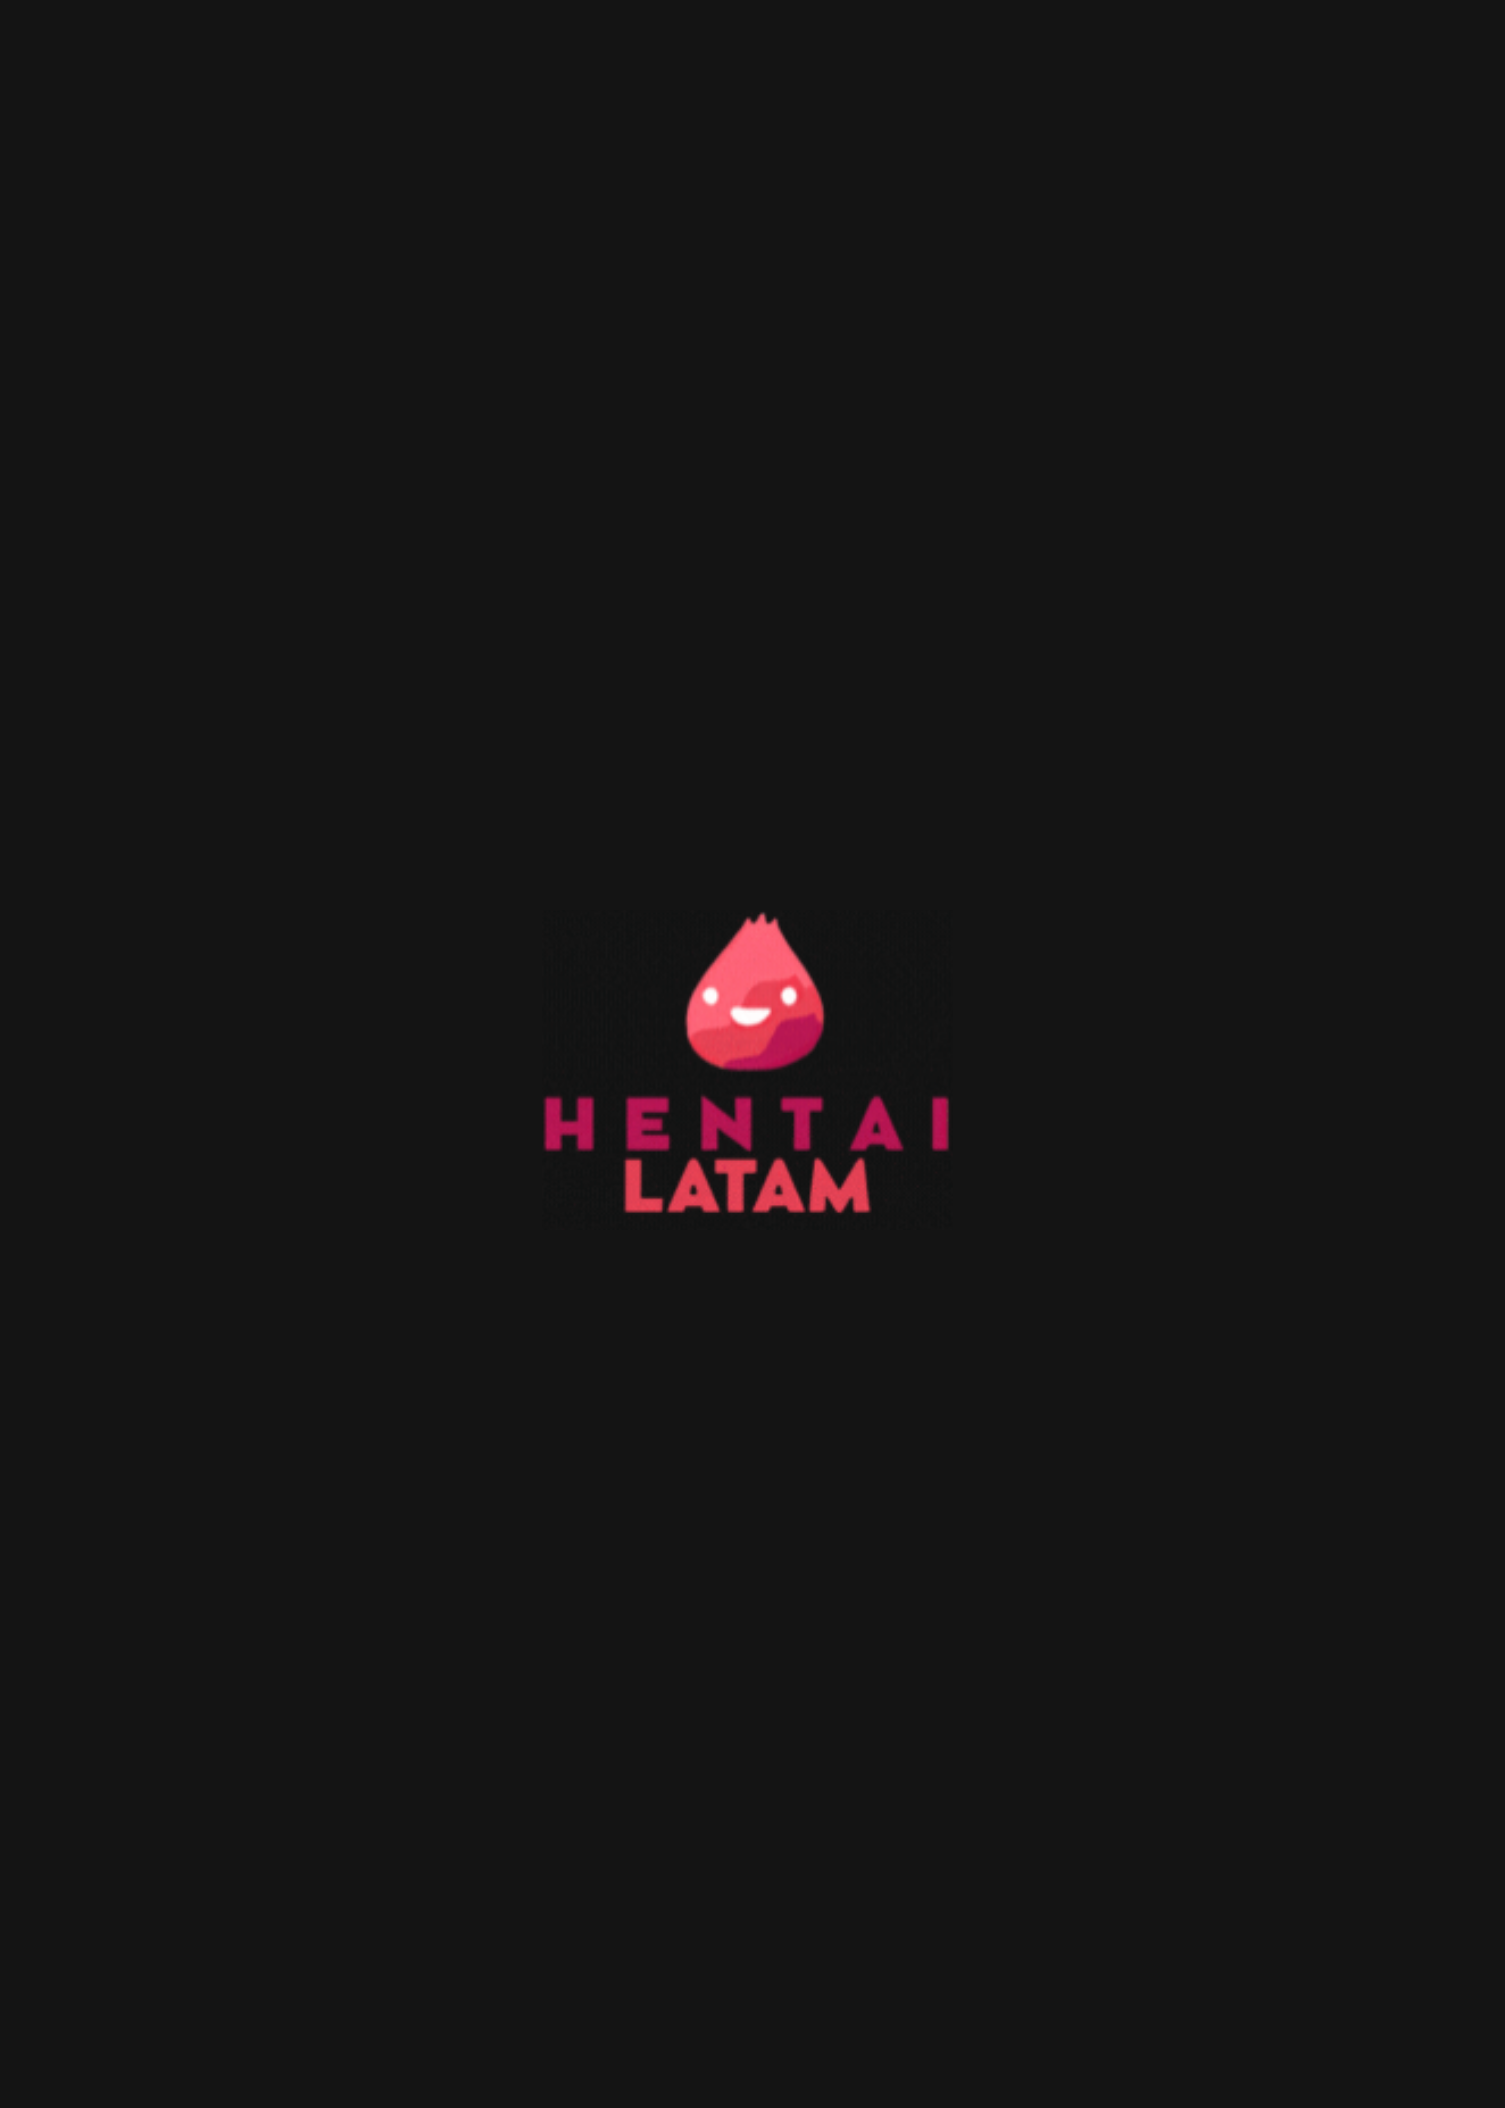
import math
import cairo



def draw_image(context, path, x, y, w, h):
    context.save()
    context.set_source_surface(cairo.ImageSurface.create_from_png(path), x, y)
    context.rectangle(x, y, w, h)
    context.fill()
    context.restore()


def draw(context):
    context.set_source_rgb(20 / 255, 20 / 255, 20 / 255)
    context.paint()
    draw_image(context, "images/1.png", 542, 910, 411, 320)


surface = cairo.ImageSurface(cairo.Format.RGB24, 1505, 2108)
context = cairo.Context(surface)
options = cairo.FontOptions()
options.set_hint_metrics(cairo.HintMetrics.OFF)
options.set_hint_style(cairo.HintStyle.NONE)
context.set_font_options(options)
context.set_miter_limit(4)
draw(context)
surface.write_to_png("out.png")
